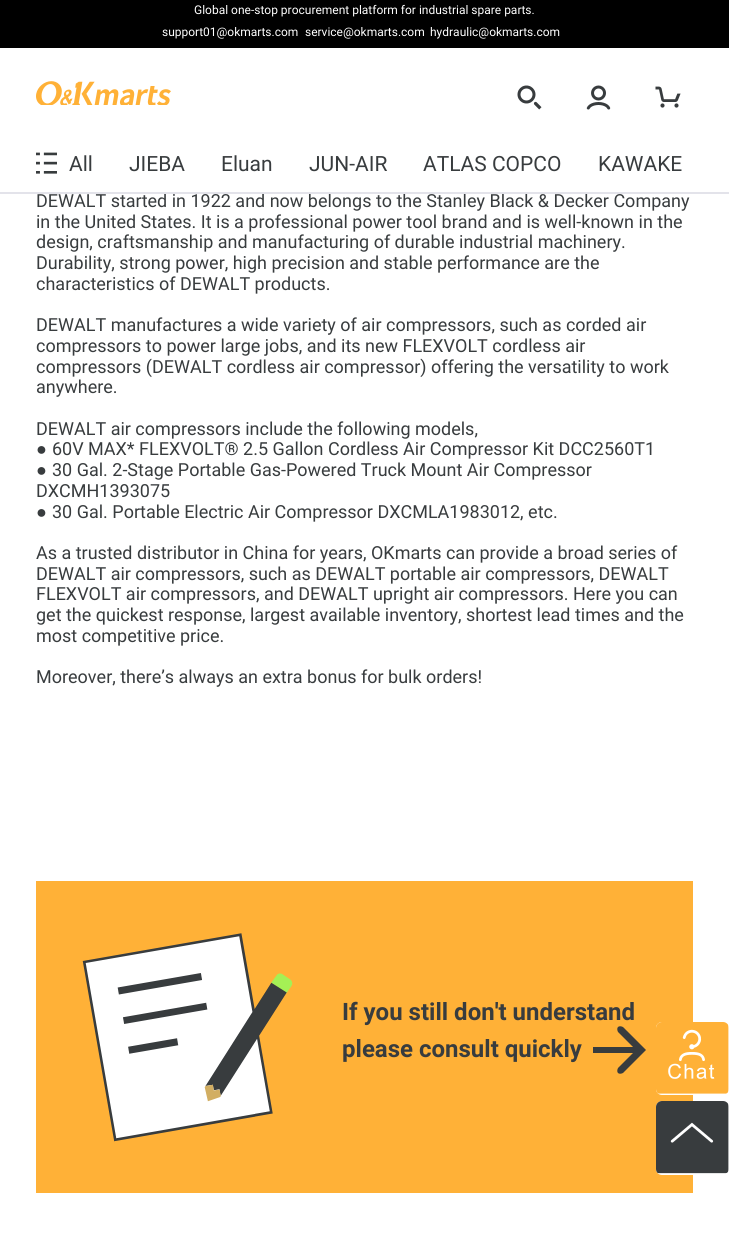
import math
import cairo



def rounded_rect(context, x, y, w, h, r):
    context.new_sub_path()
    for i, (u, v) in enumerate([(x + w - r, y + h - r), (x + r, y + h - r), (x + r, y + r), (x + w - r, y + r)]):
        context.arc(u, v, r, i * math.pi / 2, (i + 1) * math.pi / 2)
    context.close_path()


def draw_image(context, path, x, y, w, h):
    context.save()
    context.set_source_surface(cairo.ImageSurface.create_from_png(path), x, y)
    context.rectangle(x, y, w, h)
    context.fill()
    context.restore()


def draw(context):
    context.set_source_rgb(1, 1, 1)
    context.paint()
    context.set_source_rgb(0, 0, 0)
    context.rectangle(0, 0, 729, 48)
    context.fill()
    draw_image(context, "images/1.png", 36, 81, 135, 24)
    draw_image(context, "images/2.png", 517, 85, 25, 25)
    draw_image(context, "images/3.png", 586, 85, 25, 25)
    draw_image(context, "images/4.png", 655, 86, 26, 22)
    draw_image(context, "images/5.png", 36, 152, 21, 22)
    context.set_source_rgb(1, 177 / 255, 55 / 255)
    context.rectangle(36, 881, 657, 312)
    context.fill()
    draw_image(context, "images/6.png", 82, 933, 211, 209)
    context.set_source_rgb(56 / 255, 60 / 255, 62 / 255)
    context.new_path()
    context.move_to(618, 1027)
    context.curve_to(617, 1028, 617, 1030, 618, 1032)
    context.line_to(633, 1047)
    context.line_to(593, 1047)
    context.line_to(593, 1053)
    context.line_to(633, 1053)
    context.line_to(618, 1068)
    context.curve_to(617, 1070, 617, 1072, 618, 1073)
    context.curve_to(619, 1074, 621, 1074, 623, 1073)
    context.line_to(646, 1050)
    context.line_to(623, 1027)
    context.curve_to(621, 1026, 619, 1026, 618, 1027)
    context.close_path()
    context.fill()
    context.set_source_rgb(1, 1, 1)
    rounded_rect(context, 656, 1022, 73, 73, 6)
    context.fill()
    draw_image(context, "images/7.png", 656, 1022, 73, 72)
    rounded_rect(context, 656, 1101, 73, 74, 6)
    context.fill()
    draw_image(context, "images/8.png", 656, 1101, 73, 73)
    context.select_font_face("Roboto")
    context.set_font_size(12)
    context.move_to(194, 14)
    context.show_text("Global one-stop procurement platform for industrial spare parts.")
    context.move_to(162, 36)
    context.show_text("support01@okmarts.com")
    context.move_to(305, 36)
    context.show_text("service@okmarts.com")
    context.move_to(430, 36)
    context.show_text("hydraulic@okmarts.com")
    context.set_font_size(21)
    context.set_source_rgb(56 / 255, 60 / 255, 62 / 255)
    context.move_to(69, 171)
    context.show_text("All")
    context.move_to(129, 171)
    context.show_text("JIEBA")
    context.move_to(221, 171)
    context.show_text("Eluan")
    context.move_to(309, 171)
    context.show_text("JUN-AIR")
    context.move_to(423, 171)
    context.show_text("ATLAS COPCO")
    context.move_to(598, 171)
    context.show_text("KAWAKE")
    context.set_font_size(18)
    context.move_to(36, 207)
    context.show_text("DEWALT started in 1922 and now belongs to the Stanley Black & Decker Company")
    context.set_source_rgb(227 / 255, 227 / 255, 234 / 255)
    context.rectangle(0, 192, 729, 2)
    context.fill()
    context.set_source_rgb(56 / 255, 60 / 255, 62 / 255)
    context.move_to(36, 228)
    context.show_text("in the United States. It is a professional power tool brand and is well-known in the")
    context.move_to(36, 248)
    context.show_text("design, craftsmanship and manufacturing of durable industrial machinery.")
    context.move_to(36, 269)
    context.show_text("Durability, strong power, high precision and stable performance are the")
    context.move_to(36, 290)
    context.show_text("characteristics of DEWALT products.")
    context.move_to(36, 331)
    context.show_text("DEWALT manufactures a wide variety of air compressors, such as corded air")
    context.move_to(36, 352)
    context.show_text("compressors to power large jobs, and its new FLEXVOLT cordless air")
    context.move_to(36, 373)
    context.show_text("compressors (DEWALT cordless air compressor) offering the versatility to work")
    context.move_to(36, 393)
    context.show_text("anywhere.")
    context.move_to(36, 435)
    context.show_text("DEWALT air compressors include the following models,")
    context.select_font_face("Liberation Sans")
    context.move_to(36, 455)
    context.show_text("●")
    context.select_font_face("Roboto")
    context.move_to(52, 455)
    context.show_text("60V MAX* FLEXVOLT® 2.5 Gallon Cordless Air Compressor Kit DCC2560T1")
    context.select_font_face("Liberation Sans")
    context.move_to(36, 476)
    context.show_text("●")
    context.select_font_face("Roboto")
    context.move_to(52, 476)
    context.show_text("30 Gal. 2-Stage Portable Gas-Powered Truck Mount Air Compressor")
    context.move_to(36, 497)
    context.show_text("DXCMH1393075")
    context.select_font_face("Liberation Sans")
    context.move_to(36, 518)
    context.show_text("●")
    context.select_font_face("Roboto")
    context.move_to(52, 518)
    context.show_text("30 Gal. Portable Electric Air Compressor DXCMLA1983012, etc.")
    context.move_to(36, 559)
    context.show_text("As a trusted distributor in China for years, OKmarts can provide a broad series of")
    context.move_to(36, 580)
    context.show_text("DEWALT air compressors, such as DEWALT portable air compressors, DEWALT")
    context.move_to(36, 600)
    context.show_text("FLEXVOLT air compressors, and DEWALT upright air compressors. Here you can")
    context.move_to(36, 621)
    context.show_text("get the quickest response, largest available inventory, shortest lead times and the")
    context.move_to(36, 642)
    context.show_text("most competitive price.")
    context.move_to(36, 683)
    context.show_text("Moreover, there’s always an extra bonus for bulk orders!")
    context.select_font_face("Roboto", cairo.FontSlant.NORMAL, cairo.FontWeight.BOLD)
    context.set_font_size(24)
    context.move_to(342, 1020)
    context.show_text("If you still don't understand")
    context.move_to(342, 1057)
    context.show_text("please consult quickly")


surface = cairo.ImageSurface(cairo.Format.RGB24, 729, 1258)
context = cairo.Context(surface)
options = cairo.FontOptions()
options.set_hint_metrics(cairo.HintMetrics.OFF)
options.set_hint_style(cairo.HintStyle.NONE)
context.set_font_options(options)
context.set_miter_limit(4)
draw(context)
surface.write_to_png("out.png")
